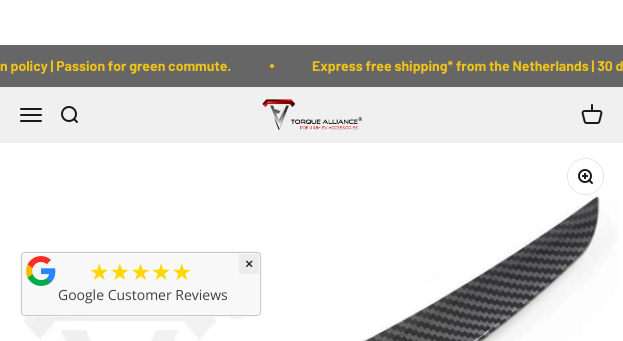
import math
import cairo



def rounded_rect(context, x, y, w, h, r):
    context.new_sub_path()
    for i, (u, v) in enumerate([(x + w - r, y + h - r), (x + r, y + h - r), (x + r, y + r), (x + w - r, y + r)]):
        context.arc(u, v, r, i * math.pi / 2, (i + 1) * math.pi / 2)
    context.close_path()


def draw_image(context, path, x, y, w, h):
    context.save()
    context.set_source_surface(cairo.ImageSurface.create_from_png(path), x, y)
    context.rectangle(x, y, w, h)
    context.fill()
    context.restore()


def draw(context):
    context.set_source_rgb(1, 1, 1)
    context.paint()
    context.set_source_rgb(102 / 255, 102 / 255, 102 / 255)
    context.rectangle(0, 45, 623, 42)
    context.fill()
    context.set_source_rgb(240 / 255, 196 / 255, 23 / 255)
    context.arc(272, 66, 2, 0, 2 * math.pi)
    context.fill()
    context.set_source_rgb(240 / 255, 240 / 255, 240 / 255)
    context.rectangle(0, 87, 623, 56)
    context.fill()
    draw_image(context, "images/1.png", 20, 108, 22, 14)
    draw_image(context, "images/2.png", 61, 106, 17, 17)
    draw_image(context, "images/3.png", 262, 99, 100, 32)
    draw_image(context, "images/4.png", 581, 104, 22, 20)
    draw_image(context, "images/6.png", 24, 194, 595, 147)
    context.arc(585.5, 176.5, 18, 0, 2 * math.pi)
    context.set_source_rgb(228 / 255, 228 / 255, 228 / 255)
    context.set_line_width(1)
    context.stroke()
    context.set_source_rgb(1, 1, 1)
    context.arc(585.5, 176.5, 17.5, 0, 2 * math.pi)
    context.fill()
    draw_image(context, "images/5.png", 578, 169, 15, 15)
    context.set_source_rgb(248 / 255, 248 / 255, 249 / 255)
    rounded_rect(context, 20, 251, 242, 66, 5)
    context.fill()
    rounded_rect(context, 21.5, 252.5, 239, 63, 3.5)
    context.set_source_rgb(201 / 255, 201 / 255, 203 / 255)
    context.stroke()
    draw_image(context, "images/7.png", 26, 256, 30, 30)
    context.set_source_rgb(236 / 255, 236 / 255, 237 / 255)
    rounded_rect(context, 239, 254, 20, 20, 2)
    context.fill()
    context.select_font_face("Barlow", cairo.FontSlant.NORMAL, cairo.FontWeight.BOLD)
    context.set_font_size(14)
    context.set_source_rgb(240 / 255, 196 / 255, 23 / 255)
    context.move_to(0, 71)
    context.show_text("n policy | Passion for green commute.")
    context.move_to(312, 71)
    context.show_text("Express free shipping* from the Netherlands | 30 d")
    context.select_font_face("DejaVu Sans")
    context.set_font_size(23)
    context.set_source_rgb(1, 215 / 255, 0)
    context.move_to(89, 280)
    context.show_text("★★★★★")
    context.select_font_face("Open Sans")
    context.set_font_size(14)
    context.set_source_rgb(64 / 255, 64 / 255, 64 / 255)
    context.move_to(58, 300)
    context.show_text("Google Customer Reviews")
    context.select_font_face("Open Sans", cairo.FontSlant.NORMAL, cairo.FontWeight.BOLD)
    context.set_source_rgb(31 / 255, 31 / 255, 31 / 255)
    context.move_to(245, 269)
    context.show_text("×")


surface = cairo.ImageSurface(cairo.Format.RGB24, 623, 341)
context = cairo.Context(surface)
options = cairo.FontOptions()
options.set_hint_metrics(cairo.HintMetrics.OFF)
options.set_hint_style(cairo.HintStyle.NONE)
context.set_font_options(options)
context.set_miter_limit(4)
draw(context)
surface.write_to_png("out.png")
